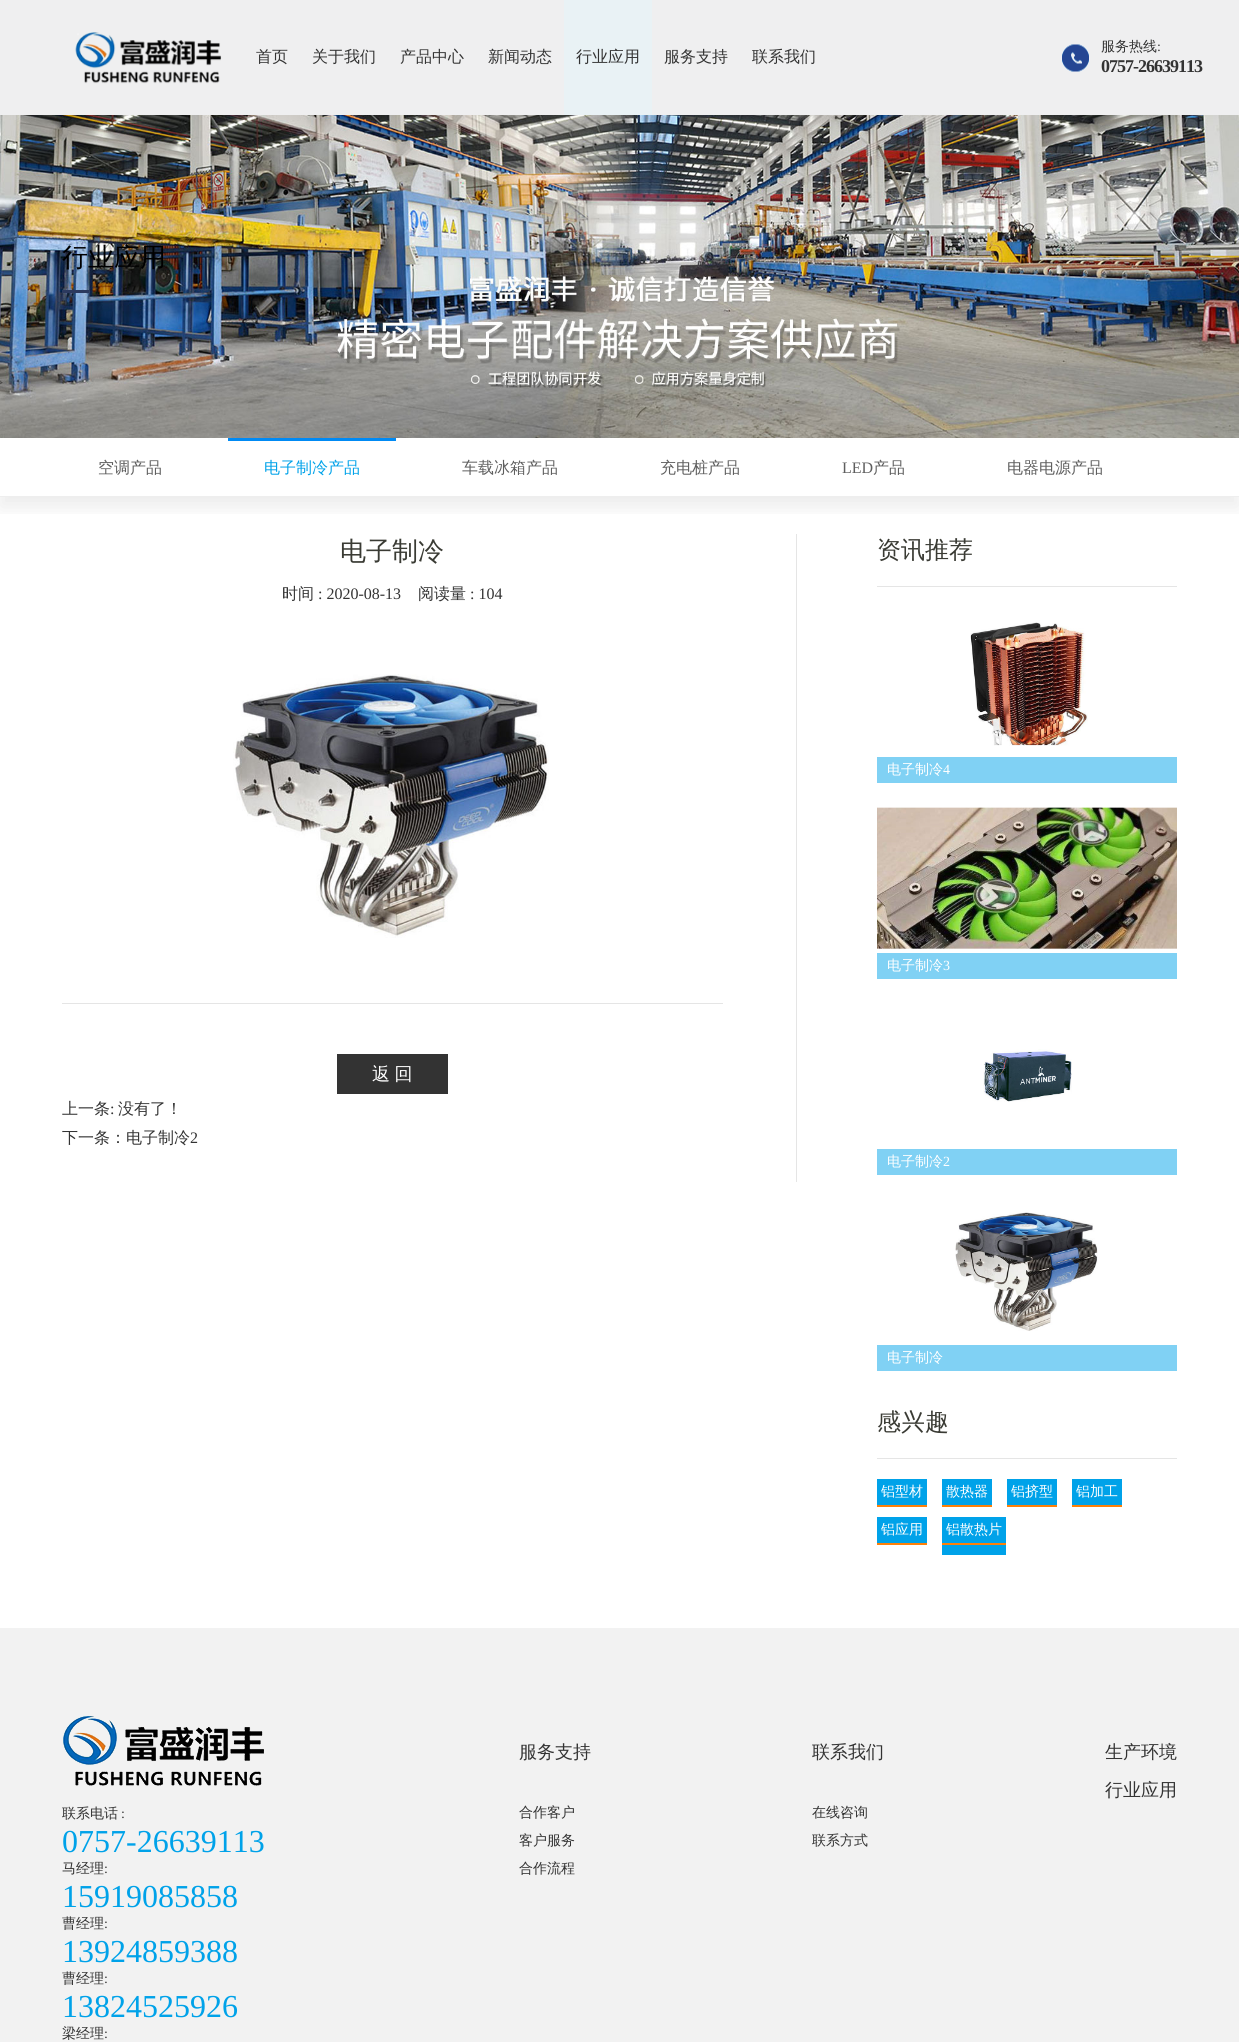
import math
import cairo



def draw_spaced(context, x, y, s, letter, word):
    context.move_to(x, y)
    for ch in s:
        context.show_text(ch)
        context.rel_move_to(letter + word * (ch == ' '), 0)


def rounded_rect(context, x, y, w, h, r):
    context.new_sub_path()
    for i, (u, v) in enumerate([(x + w - r, y + h - r), (x + r, y + h - r), (x + r, y + r), (x + w - r, y + r)]):
        context.arc(u, v, r, i * math.pi / 2, (i + 1) * math.pi / 2)
    context.close_path()


def draw_shadow(context, x, y, w, h, r, blur, alpha):
    context.push_group_with_content(cairo.Content.ALPHA)
    context.set_operator(cairo.Operator.SOURCE)
    for i in range(15, -16, -2):
        e = blur * i / 6
        if min(w, h) + 2 * e > 0:
            context.set_source_rgba(0, 0, 0, alpha * math.erfc((i - 1) / 8.5) / 2)
            rounded_rect(context, x - e, y - e, w + 2 * e, h + 2 * e, max(0, min(r + e + blur * .6, min(w, h) / 2 + e)))
            context.fill()
    context.mask(context.pop_group())


def draw_image(context, path, x, y, w, h):
    context.save()
    context.set_source_surface(cairo.ImageSurface.create_from_png(path), x, y)
    context.rectangle(x, y, w, h)
    context.fill()
    context.restore()


def draw(context):
    context.set_source_rgb(1, 1, 1)
    context.paint()
    context.set_source_rgb(239 / 255, 239 / 255, 240 / 255)
    context.rectangle(0, 0, 1239, 115)
    context.fill()
    draw_image(context, "images/1.png", 75, 32, 147, 52)
    context.set_source_rgb(233 / 255, 242 / 255, 245 / 255)
    context.rectangle(564, 0, 88, 115)
    context.fill()
    draw_image(context, "images/2.png", 1061, 44, 29, 28)
    draw_image(context, "images/3.png", 0, 115, 1239, 323)
    context.set_source_rgb(44 / 255, 58 / 255, 95 / 255)
    context.rectangle(62, 290, 27, 3)
    context.fill()
    context.set_source_rgb(229 / 255, 229 / 255, 229 / 255)
    context.rectangle(796, 534, 1, 648)
    context.fill()
    context.save()
    context.rectangle(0, 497, 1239, 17)
    context.clip()
    context.set_source_rgb(0, 0, 0)
    draw_shadow(context, 0, 448, 1239, 59, 0, 10, 0.08)
    context.restore()
    context.set_source_rgb(238 / 255, 238 / 255, 238 / 255)
    context.rectangle(0, 496, 1239, 1)
    context.fill()
    context.set_source_rgb(0, 138 / 255, 244 / 255)
    context.rectangle(228, 438, 168, 3)
    context.fill()
    draw_image(context, "images/4.png", 233, 674, 316, 264)
    context.set_source_rgb(229 / 255, 229 / 255, 229 / 255)
    context.rectangle(62, 1003, 661, 1)
    context.fill()
    context.set_source_rgb(51 / 255, 51 / 255, 51 / 255)
    context.rectangle(337, 1054, 111, 40)
    context.fill()
    context.set_source_rgb(229 / 255, 229 / 255, 229 / 255)
    context.rectangle(877, 586, 300, 1)
    context.fill()
    draw_image(context, "images/5.png", 970, 622, 118, 124)
    context.set_source_rgb(128 / 255, 209 / 255, 244 / 255)
    context.rectangle(877, 757, 300, 26)
    context.fill()
    draw_image(context, "images/6.png", 877, 807, 300, 142)
    context.rectangle(877, 953, 300, 26)
    context.fill()
    draw_image(context, "images/7.png", 983, 1049, 89, 53)
    context.rectangle(877, 1149, 300, 26)
    context.fill()
    draw_image(context, "images/8.png", 955, 1212, 143, 119)
    context.rectangle(877, 1345, 300, 26)
    context.fill()
    context.set_source_rgb(229 / 255, 229 / 255, 229 / 255)
    context.rectangle(877, 1458, 300, 1)
    context.fill()
    context.set_source_rgb(0, 162 / 255, 233 / 255)
    context.rectangle(877, 1479, 50, 26)
    context.fill()
    context.set_source_rgb(1, 128 / 255, 7 / 255)
    context.rectangle(877, 1505, 50, 2)
    context.fill()
    context.set_source_rgb(0, 162 / 255, 233 / 255)
    context.rectangle(942, 1479, 50, 26)
    context.fill()
    context.set_source_rgb(1, 128 / 255, 7 / 255)
    context.rectangle(942, 1505, 50, 2)
    context.fill()
    context.set_source_rgb(0, 162 / 255, 233 / 255)
    context.rectangle(1007, 1479, 50, 26)
    context.fill()
    context.set_source_rgb(1, 128 / 255, 7 / 255)
    context.rectangle(1007, 1505, 50, 2)
    context.fill()
    context.set_source_rgb(0, 162 / 255, 233 / 255)
    context.rectangle(1072, 1479, 50, 26)
    context.fill()
    context.set_source_rgb(1, 128 / 255, 7 / 255)
    context.rectangle(1072, 1505, 50, 2)
    context.fill()
    context.set_source_rgb(0, 162 / 255, 233 / 255)
    context.rectangle(877, 1517, 50, 26)
    context.fill()
    context.set_source_rgb(1, 128 / 255, 7 / 255)
    context.rectangle(877, 1543, 50, 2)
    context.fill()
    context.set_source_rgb(0, 162 / 255, 233 / 255)
    context.rectangle(942, 1517, 64, 38)
    context.fill()
    context.set_source_rgb(1, 128 / 255, 7 / 255)
    context.rectangle(942, 1543, 64, 2)
    context.fill()
    context.set_source_rgb(242 / 255, 242 / 255, 242 / 255)
    context.rectangle(0, 1628, 1239, 414)
    context.fill()
    draw_image(context, "images/9.png", 63, 1716, 201, 70)
    context.select_font_face("WenQuanYi Zen Hei Medium")
    context.set_font_size(16)
    context.set_source_rgb(51 / 255, 51 / 255, 51 / 255)
    context.move_to(256, 62)
    context.show_text("首页")
    context.move_to(312, 62)
    context.show_text("关于我们")
    context.move_to(400, 62)
    context.show_text("产品中心")
    context.move_to(488, 62)
    context.show_text("新闻动态")
    context.move_to(576, 62)
    context.show_text("行业应用")
    context.move_to(664, 62)
    context.show_text("服务支持")
    context.move_to(752, 62)
    context.show_text("联系我们")
    context.set_font_size(14)
    context.move_to(1101, 51)
    context.show_text("服务热线")
    context.select_font_face("Liberation Serif")
    context.move_to(1157, 51)
    context.show_text(":")
    context.select_font_face("Liberation Serif", cairo.FontSlant.NORMAL, cairo.FontWeight.BOLD)
    context.set_font_size(18)
    draw_spaced(context, 1101, 72, "0757-26639113", -1, 0)
    context.select_font_face("WenQuanYi Zen Hei Medium")
    context.set_font_size(26)
    context.set_source_rgb(0, 0, 0)
    context.move_to(62, 266)
    context.show_text("行业应用")
    context.set_font_size(16)
    context.set_source_rgb(94 / 255, 94 / 255, 94 / 255)
    context.move_to(98, 473)
    context.show_text("空调产品")
    context.set_source_rgb(0, 162 / 255, 233 / 255)
    context.move_to(264, 473)
    context.show_text("电子制冷产品")
    context.set_source_rgb(94 / 255, 94 / 255, 94 / 255)
    context.move_to(462, 473)
    context.show_text("车载冰箱产品")
    context.move_to(660, 473)
    context.show_text("充电桩产品")
    context.select_font_face("Liberation Serif")
    context.move_to(842, 473)
    context.show_text("LED")
    context.select_font_face("WenQuanYi Zen Hei Medium")
    context.move_to(873, 473)
    context.show_text("产品")
    context.move_to(1007, 473)
    context.show_text("电器电源产品")
    context.set_font_size(26)
    context.set_source_rgb(58 / 255, 59 / 255, 52 / 255)
    context.move_to(340, 560)
    context.show_text("电子制冷")
    context.set_font_size(16)
    context.set_source_rgb(51 / 255, 51 / 255, 51 / 255)
    context.move_to(282, 599)
    context.show_text("时间")
    context.select_font_face("Liberation Serif")
    context.move_to(318, 599)
    context.show_text(": 2020-08-13")
    context.select_font_face("WenQuanYi Zen Hei Medium")
    context.move_to(418, 599)
    context.show_text("阅读量")
    context.select_font_face("Liberation Serif")
    context.move_to(470, 599)
    context.show_text(": 104")
    context.select_font_face("WenQuanYi Zen Hei Medium")
    context.set_font_size(18)
    context.set_source_rgb(1, 1, 1)
    draw_spaced(context, 372, 1080, "返 回", 0, -1)
    context.set_font_size(16)
    context.set_source_rgb(51 / 255, 51 / 255, 51 / 255)
    context.move_to(62, 1114)
    context.show_text("上一条")
    context.select_font_face("Liberation Serif")
    context.move_to(110, 1114)
    context.show_text(":")
    context.select_font_face("WenQuanYi Zen Hei Medium")
    context.move_to(118, 1114)
    context.show_text("没有了！")
    context.move_to(62, 1143)
    context.show_text("下一条：电子制冷")
    context.select_font_face("Liberation Serif")
    context.move_to(190, 1143)
    context.show_text("2")
    context.select_font_face("WenQuanYi Zen Hei Medium")
    context.set_font_size(24)
    context.set_source_rgb(58 / 255, 59 / 255, 52 / 255)
    context.move_to(877, 558)
    context.show_text("资讯推荐")
    context.set_font_size(14)
    context.set_source_rgb(1, 1, 1)
    context.move_to(887, 774)
    context.show_text("电子制冷")
    context.select_font_face("Liberation Serif")
    context.move_to(943, 774)
    context.show_text("4")
    context.select_font_face("WenQuanYi Zen Hei Medium")
    context.move_to(887, 970)
    context.show_text("电子制冷")
    context.select_font_face("Liberation Serif")
    context.move_to(943, 970)
    context.show_text("3")
    context.select_font_face("WenQuanYi Zen Hei Medium")
    context.move_to(887, 1166)
    context.show_text("电子制冷")
    context.select_font_face("Liberation Serif")
    context.move_to(943, 1166)
    context.show_text("2")
    context.select_font_face("WenQuanYi Zen Hei Medium")
    context.move_to(887, 1362)
    context.show_text("电子制冷")
    context.set_font_size(24)
    context.set_source_rgb(58 / 255, 59 / 255, 52 / 255)
    context.move_to(877, 1430)
    context.show_text("感兴趣")
    context.set_font_size(14)
    context.set_source_rgb(1, 1, 1)
    context.move_to(881, 1496)
    context.show_text("铝型材")
    context.move_to(946, 1496)
    context.show_text("散热器")
    context.move_to(1011, 1496)
    context.show_text("铝挤型")
    context.move_to(1076, 1496)
    context.show_text("铝加工")
    context.move_to(881, 1534)
    context.show_text("铝应用")
    context.move_to(946, 1534)
    context.show_text("铝散热片")
    context.set_source_rgb(51 / 255, 51 / 255, 51 / 255)
    context.move_to(62, 1818)
    context.show_text("联系电话")
    context.select_font_face("Liberation Serif")
    context.move_to(121, 1818)
    context.show_text(":")
    context.set_font_size(32)
    context.set_source_rgb(0, 162 / 255, 233 / 255)
    context.move_to(62, 1852)
    context.show_text("0757-26639113")
    context.select_font_face("WenQuanYi Zen Hei Medium")
    context.set_font_size(14)
    context.set_source_rgb(51 / 255, 51 / 255, 51 / 255)
    context.move_to(62, 1873)
    context.show_text("马经理")
    context.select_font_face("Liberation Serif")
    context.move_to(104, 1873)
    context.show_text(":")
    context.set_font_size(32)
    context.set_source_rgb(0, 162 / 255, 233 / 255)
    context.move_to(62, 1907)
    context.show_text("15919085858")
    context.select_font_face("WenQuanYi Zen Hei Medium")
    context.set_font_size(14)
    context.set_source_rgb(51 / 255, 51 / 255, 51 / 255)
    context.move_to(62, 1928)
    context.show_text("曹经理")
    context.select_font_face("Liberation Serif")
    context.move_to(104, 1928)
    context.show_text(":")
    context.set_font_size(32)
    context.set_source_rgb(0, 162 / 255, 233 / 255)
    context.move_to(62, 1962)
    context.show_text("13924859388")
    context.select_font_face("WenQuanYi Zen Hei Medium")
    context.set_font_size(14)
    context.set_source_rgb(51 / 255, 51 / 255, 51 / 255)
    context.move_to(62, 1983)
    context.show_text("曹经理")
    context.select_font_face("Liberation Serif")
    context.move_to(104, 1983)
    context.show_text(":")
    context.set_font_size(32)
    context.set_source_rgb(0, 162 / 255, 233 / 255)
    context.move_to(62, 2017)
    context.show_text("13824525926")
    context.select_font_face("WenQuanYi Zen Hei Medium")
    context.set_font_size(14)
    context.set_source_rgb(51 / 255, 51 / 255, 51 / 255)
    context.move_to(62, 2038)
    context.show_text("梁经理")
    context.select_font_face("Liberation Serif")
    context.move_to(104, 2038)
    context.show_text(":")
    context.select_font_face("WenQuanYi Zen Hei Medium")
    context.set_font_size(18)
    context.move_to(519, 1758)
    context.show_text("服务支持")
    context.set_font_size(14)
    context.move_to(519, 1817)
    context.show_text("合作客户")
    context.move_to(519, 1845)
    context.show_text("客户服务")
    context.move_to(519, 1873)
    context.show_text("合作流程")
    context.set_font_size(18)
    context.move_to(812, 1758)
    context.show_text("联系我们")
    context.set_font_size(14)
    context.move_to(812, 1817)
    context.show_text("在线咨询")
    context.move_to(812, 1845)
    context.show_text("联系方式")
    context.set_font_size(18)
    context.move_to(1105, 1758)
    context.show_text("生产环境")
    context.move_to(1105, 1796)
    context.show_text("行业应用")


surface = cairo.ImageSurface(cairo.Format.RGB24, 1239, 2042)
context = cairo.Context(surface)
options = cairo.FontOptions()
options.set_hint_metrics(cairo.HintMetrics.OFF)
options.set_hint_style(cairo.HintStyle.NONE)
context.set_font_options(options)
context.set_miter_limit(4)
draw(context)
surface.write_to_png("out.png")
